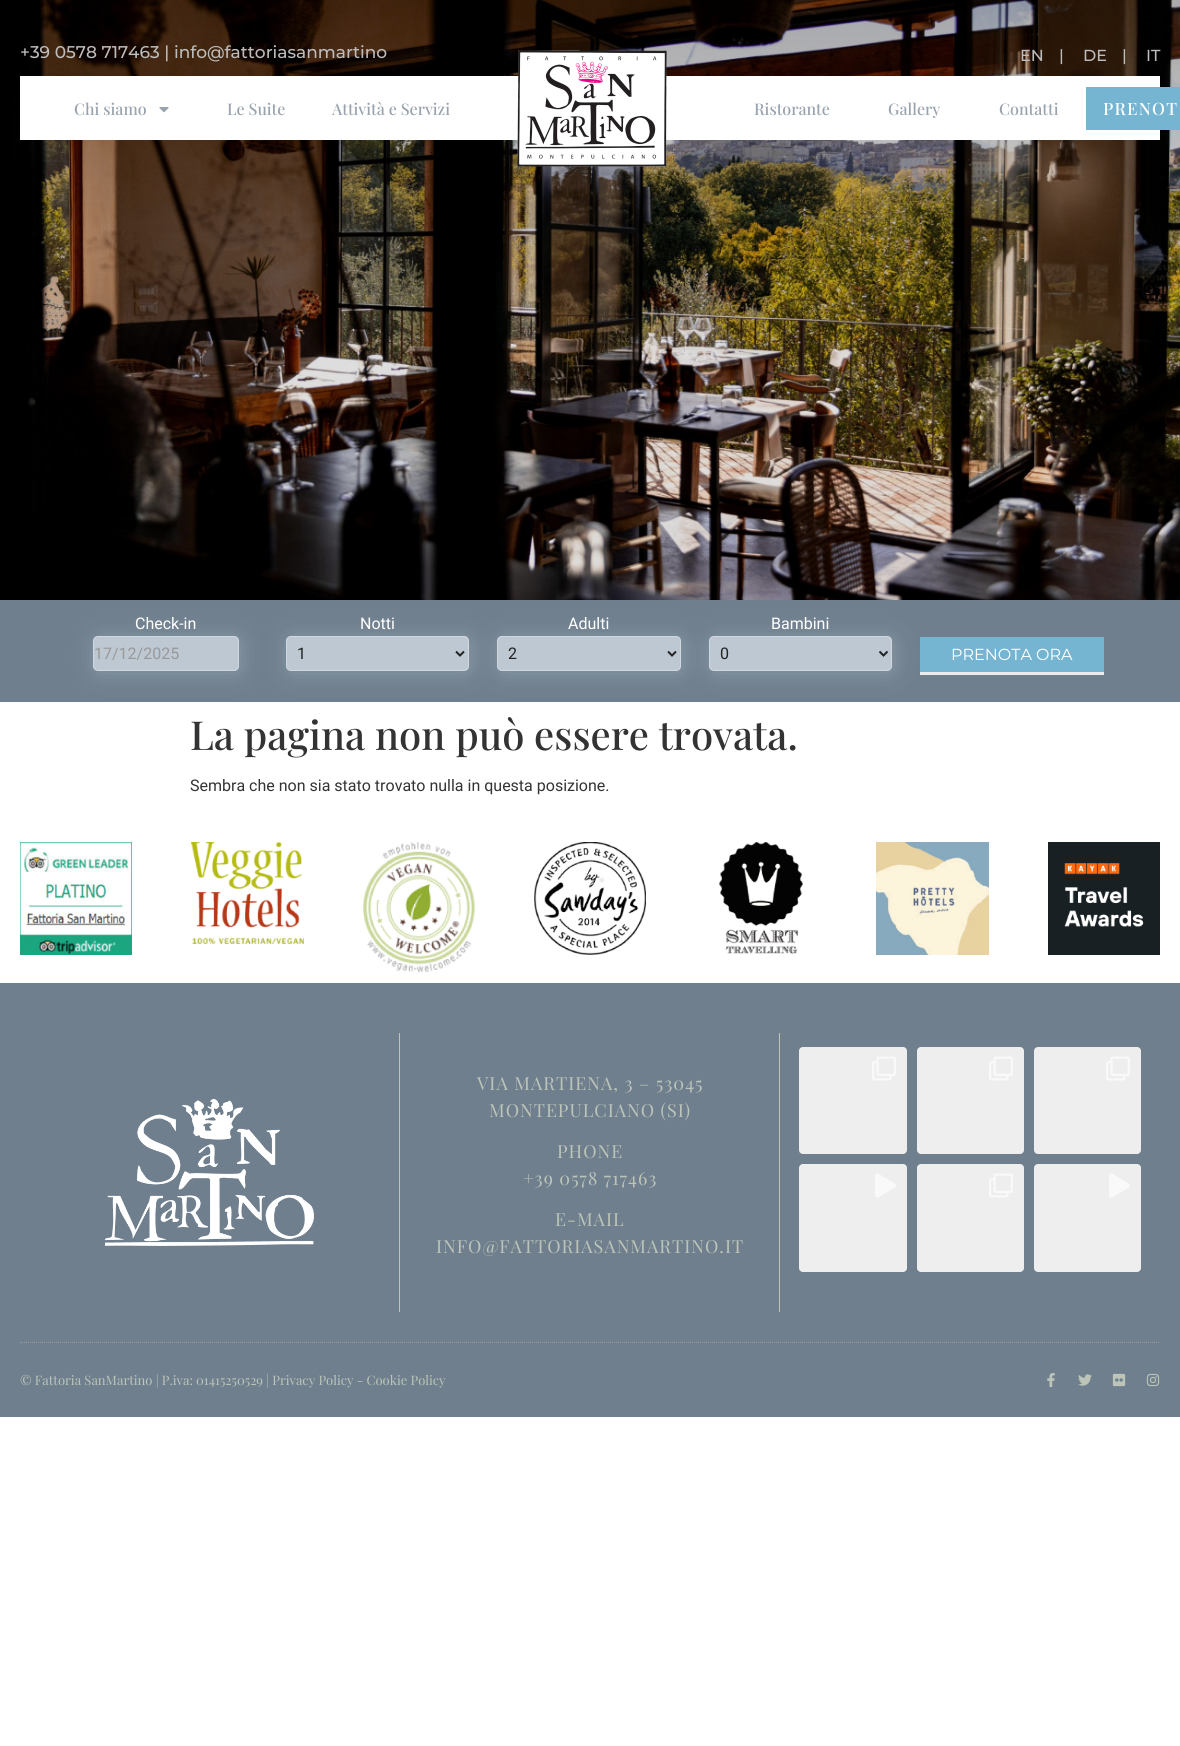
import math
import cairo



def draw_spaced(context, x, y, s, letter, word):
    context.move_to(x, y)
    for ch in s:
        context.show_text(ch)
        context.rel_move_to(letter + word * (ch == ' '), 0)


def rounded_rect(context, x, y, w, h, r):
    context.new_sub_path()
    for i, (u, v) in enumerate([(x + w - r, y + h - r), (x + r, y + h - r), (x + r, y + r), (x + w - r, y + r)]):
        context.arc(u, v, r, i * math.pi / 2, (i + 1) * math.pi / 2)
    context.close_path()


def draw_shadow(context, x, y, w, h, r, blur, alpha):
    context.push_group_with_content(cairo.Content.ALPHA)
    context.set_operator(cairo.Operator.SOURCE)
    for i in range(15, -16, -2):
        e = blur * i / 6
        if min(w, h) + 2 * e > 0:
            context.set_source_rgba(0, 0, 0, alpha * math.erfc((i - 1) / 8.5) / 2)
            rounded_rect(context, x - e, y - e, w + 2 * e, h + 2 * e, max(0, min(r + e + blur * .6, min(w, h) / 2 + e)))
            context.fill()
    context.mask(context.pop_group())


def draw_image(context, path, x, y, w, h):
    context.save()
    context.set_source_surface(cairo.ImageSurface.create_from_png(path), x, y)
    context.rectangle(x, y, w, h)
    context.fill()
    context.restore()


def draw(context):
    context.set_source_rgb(1, 1, 1)
    context.paint()
    draw_image(context, "images/1.png", 0, 0, 1180, 600)
    context.set_source_rgb(1, 1, 1)
    context.rectangle(20, 76, 1140, 64)
    context.fill()
    draw_image(context, "images/2.png", 517, 50, 150, 117)
    draw_image(context, "images/3.png", 159, 107, 10, 6)
    context.set_source_rgb(118 / 255, 181 / 255, 210 / 255)
    context.rectangle(1086, 87, 94, 43)
    context.fill()
    context.set_source_rgb(112 / 255, 127 / 255, 142 / 255)
    context.rectangle(0, 600, 1180, 102)
    context.fill()
    context.set_source_rgb(192 / 255, 216 / 255, 227 / 255)
    draw_shadow(context, 95, 638, 146, 35, 5, 11, 0.29)
    context.set_source_rgb(190 / 255, 200 / 255, 211 / 255)
    rounded_rect(context, 93, 636, 146, 35, 5)
    context.fill()
    rounded_rect(context, 93.5, 636.5, 145, 34, 4.5)
    context.set_source_rgba(1, 1, 1, 0.29)
    context.set_line_width(1)
    context.stroke()
    context.set_source_rgb(192 / 255, 216 / 255, 227 / 255)
    draw_shadow(context, 288, 638, 183, 35, 5, 11, 0.29)
    context.set_source_rgb(190 / 255, 200 / 255, 211 / 255)
    rounded_rect(context, 286, 636, 183, 35, 5)
    context.fill()
    rounded_rect(context, 286.5, 636.5, 182, 34, 4.5)
    context.set_source_rgba(1, 1, 1, 0.29)
    context.stroke()
    context.new_path()
    context.move_to(456, 651.5)
    context.line_to(460, 655.5)
    context.line_to(464, 651.5)
    context.set_source_rgb(34 / 255, 34 / 255, 34 / 255)
    context.set_line_width(2)
    context.stroke()
    context.set_source_rgb(192 / 255, 216 / 255, 227 / 255)
    draw_shadow(context, 499, 638, 184, 35, 5, 11, 0.29)
    context.set_source_rgb(190 / 255, 200 / 255, 211 / 255)
    rounded_rect(context, 497, 636, 184, 35, 5)
    context.fill()
    rounded_rect(context, 497.5, 636.5, 183, 34, 4.5)
    context.set_source_rgba(1, 1, 1, 0.29)
    context.set_line_width(1)
    context.stroke()
    context.new_path()
    context.move_to(668, 651.5)
    context.line_to(672, 655.5)
    context.line_to(676, 651.5)
    context.set_source_rgb(34 / 255, 34 / 255, 34 / 255)
    context.set_line_width(2)
    context.stroke()
    context.set_source_rgb(192 / 255, 216 / 255, 227 / 255)
    draw_shadow(context, 711, 638, 183, 35, 5, 11, 0.29)
    context.set_source_rgb(190 / 255, 200 / 255, 211 / 255)
    rounded_rect(context, 709, 636, 183, 35, 5)
    context.fill()
    rounded_rect(context, 709.5, 636.5, 182, 34, 4.5)
    context.set_source_rgba(1, 1, 1, 0.29)
    context.set_line_width(1)
    context.stroke()
    context.new_path()
    context.move_to(879.5, 651.5)
    context.line_to(883.5, 655.5)
    context.line_to(887.5, 651.5)
    context.set_source_rgb(34 / 255, 34 / 255, 34 / 255)
    context.set_line_width(2)
    context.stroke()
    context.set_source_rgb(118 / 255, 181 / 255, 210 / 255)
    context.rectangle(920, 637, 184, 35)
    context.fill()
    context.set_source_rgb(236 / 255, 236 / 255, 236 / 255)
    context.rectangle(920, 672, 184, 3)
    context.fill()
    draw_image(context, "images/4.png", 20, 842, 112, 113)
    draw_image(context, "images/5.png", 191, 842, 113, 102)
    draw_image(context, "images/6.png", 363, 842, 112, 131)
    draw_image(context, "images/7.png", 534, 842, 112, 113)
    draw_image(context, "images/8.png", 719, 842, 84, 112)
    draw_image(context, "images/9.png", 876, 842, 113, 113)
    draw_image(context, "images/10.png", 1048, 842, 112, 113)
    context.set_source_rgb(112 / 255, 127 / 255, 142 / 255)
    context.rectangle(0, 983, 1180, 434)
    context.fill()
    context.new_path()
    context.move_to(20, 1342.5)
    context.line_to(1160, 1342.5)
    context.set_source_rgb(155 / 255, 155 / 255, 155 / 255)
    context.set_line_width(1)
    context.set_dash([1, 1])
    context.stroke()
    context.set_source_rgb(188 / 255, 197 / 255, 184 / 255)
    context.rectangle(399, 1033, 1, 279)
    context.fill()
    draw_image(context, "images/11.png", 105, 1099, 209, 147)
    context.rectangle(779, 1033, 1, 279)
    context.fill()
    context.set_source_rgb(238 / 255, 238 / 255, 238 / 255)
    rounded_rect(context, 799, 1047, 108, 107, 4)
    context.fill()
    draw_image(context, "images/12.png", 872, 1056, 24, 25)
    rounded_rect(context, 917, 1047, 107, 107, 4)
    context.fill()
    draw_image(context, "images/12.png", 989, 1056, 24, 25)
    rounded_rect(context, 1034, 1047, 107, 107, 4)
    context.fill()
    draw_image(context, "images/12.png", 1106, 1056, 24, 25)
    rounded_rect(context, 799, 1164, 108, 108, 4)
    context.fill()
    draw_image(context, "images/13.png", 875, 1173, 21, 25)
    rounded_rect(context, 917, 1164, 107, 108, 4)
    context.fill()
    draw_image(context, "images/12.png", 989, 1173, 24, 25)
    rounded_rect(context, 1034, 1164, 107, 108, 4)
    context.fill()
    draw_image(context, "images/13.png", 1109, 1173, 21, 25)
    draw_image(context, "images/14.png", 1047, 1373, 8, 14)
    draw_image(context, "images/15.png", 1078, 1374, 14, 12)
    draw_image(context, "images/16.png", 1112, 1373, 14, 14)
    draw_image(context, "images/17.png", 1146, 1373, 14, 14)
    context.select_font_face("Montserrat Medium")
    context.set_font_size(17)
    context.set_source_rgb(189 / 255, 189 / 255, 189 / 255)
    context.move_to(20, 58)
    context.show_text("+39 0578 717463 | info@fattoriasanmartino")
    context.set_font_size(16)
    context.move_to(1020, 61)
    context.show_text("EN")
    context.move_to(1059, 61)
    context.show_text("|")
    context.move_to(1083, 61)
    context.show_text("DE")
    context.move_to(1122, 61)
    context.show_text("|")
    context.move_to(1146, 61)
    context.show_text("IT")
    context.select_font_face("Playfair Display Medium")
    context.set_source_rgb(153 / 255, 163 / 255, 174 / 255)
    context.move_to(74, 115)
    context.show_text("Chi siamo")
    context.move_to(227, 115)
    context.show_text("Le Suite")
    context.move_to(332, 115)
    context.show_text("Attività e Servizi")
    context.move_to(754, 115)
    context.show_text("Ristorante")
    context.move_to(888, 115)
    context.show_text("Gallery")
    context.move_to(999, 115)
    context.show_text("Contatti")
    context.set_font_size(17)
    context.set_source_rgb(1, 1, 1)
    draw_spaced(context, 1103, 115, "PRENOT", 1.25, 0)
    context.select_font_face("Roboto")
    context.set_font_size(16)
    context.move_to(135, 629)
    context.show_text("Check-in")
    context.set_source_rgb(153 / 255, 153 / 255, 153 / 255)
    context.move_to(94, 659)
    context.show_text("17/12/2025")
    context.set_source_rgb(1, 1, 1)
    context.move_to(360, 629)
    context.show_text("Notti")
    context.set_source_rgb(34 / 255, 34 / 255, 34 / 255)
    context.move_to(297, 659)
    context.show_text("1")
    context.set_source_rgb(1, 1, 1)
    context.move_to(568, 629)
    context.show_text("Adulti")
    context.set_source_rgb(34 / 255, 34 / 255, 34 / 255)
    context.move_to(508, 659)
    context.show_text("2")
    context.set_source_rgb(1, 1, 1)
    context.move_to(771, 629)
    context.show_text("Bambini")
    context.set_source_rgb(34 / 255, 34 / 255, 34 / 255)
    context.move_to(720, 659)
    context.show_text("0")
    context.select_font_face("Montserrat")
    context.set_source_rgb(1, 1, 1)
    context.move_to(951, 660)
    context.show_text("PRENOTA ORA")
    context.select_font_face("Playfair Display Medium")
    context.set_font_size(40)
    context.set_source_rgb(51 / 255, 51 / 255, 51 / 255)
    context.move_to(190, 750)
    context.show_text("La pagina non può essere trovata.")
    context.select_font_face("Roboto")
    context.set_font_size(16)
    context.move_to(190, 791)
    context.show_text("Sembra che non sia stato trovato nulla in questa posizione.")
    context.select_font_face("Playfair Display")
    context.set_font_size(18)
    context.set_source_rgb(188 / 255, 197 / 255, 184 / 255)
    draw_spaced(context, 477, 1090, "VIA MARTIENA, 3 – 53045", 1, 0)
    draw_spaced(context, 489, 1117, "MONTEPULCIANO (SI)", 1, 0)
    draw_spaced(context, 557, 1158, "PHONE", 1, 0)
    draw_spaced(context, 523, 1185, "+39 0578 717463", 1, 0)
    draw_spaced(context, 555, 1226, "E-MAIL", 1, 0)
    draw_spaced(context, 436, 1253, "INFO@FATTORIASANMARTINO.IT", 1, 0)
    context.set_font_size(13)
    context.move_to(20, 1385)
    context.show_text("© Fattoria SanMartino | P.iva: 01415250529 | Privacy Policy - Cookie Policy")


surface = cairo.ImageSurface(cairo.Format.RGB24, 1180, 1746)
context = cairo.Context(surface)
options = cairo.FontOptions()
options.set_hint_metrics(cairo.HintMetrics.OFF)
options.set_hint_style(cairo.HintStyle.NONE)
context.set_font_options(options)
context.set_miter_limit(4)
draw(context)
surface.write_to_png("out.png")
